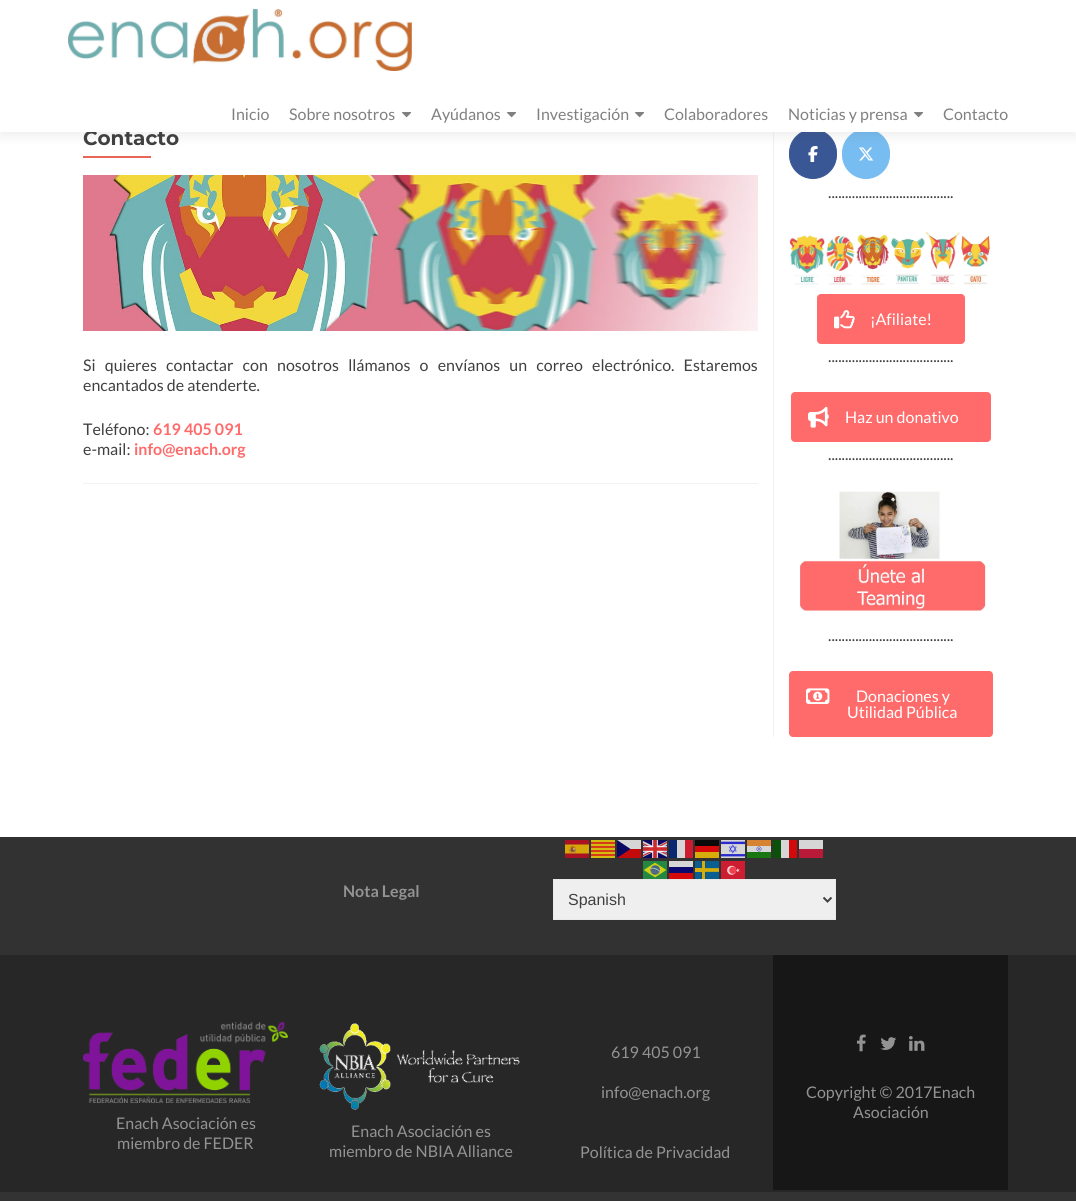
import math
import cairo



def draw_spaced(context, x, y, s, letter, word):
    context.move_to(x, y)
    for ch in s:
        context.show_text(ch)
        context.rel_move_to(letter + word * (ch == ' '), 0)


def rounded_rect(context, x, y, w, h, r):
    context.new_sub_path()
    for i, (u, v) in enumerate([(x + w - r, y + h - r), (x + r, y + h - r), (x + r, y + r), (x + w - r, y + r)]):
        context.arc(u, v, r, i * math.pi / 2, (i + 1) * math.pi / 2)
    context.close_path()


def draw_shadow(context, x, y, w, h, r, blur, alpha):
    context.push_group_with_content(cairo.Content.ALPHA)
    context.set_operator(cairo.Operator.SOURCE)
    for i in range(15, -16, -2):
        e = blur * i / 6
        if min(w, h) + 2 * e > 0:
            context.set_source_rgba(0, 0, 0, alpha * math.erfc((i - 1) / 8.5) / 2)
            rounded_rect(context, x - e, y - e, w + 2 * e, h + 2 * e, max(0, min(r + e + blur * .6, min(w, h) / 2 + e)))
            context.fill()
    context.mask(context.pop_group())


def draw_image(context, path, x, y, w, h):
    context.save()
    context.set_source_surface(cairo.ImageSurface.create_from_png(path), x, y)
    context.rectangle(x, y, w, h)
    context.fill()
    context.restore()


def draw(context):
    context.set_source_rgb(1, 1, 1)
    context.paint()
    context.set_source_rgb(242 / 255, 242 / 255, 242 / 255)
    context.rectangle(773, 127, 1, 610)
    context.fill()
    context.set_source_rgb(58 / 255, 87 / 255, 149 / 255)
    rounded_rect(context, 789.5, 129.5, 47, 49, 23.5)
    context.fill_preserve()
    context.set_line_width(1)
    context.stroke()
    draw_image(context, "images/4.png", 808, 146, 10, 16)
    context.set_source_rgb(120 / 255, 189 / 255, 241 / 255)
    rounded_rect(context, 842.5, 129.5, 47, 49, 23.5)
    context.fill_preserve()
    context.stroke()
    draw_image(context, "images/5.png", 859, 147, 15, 14)
    context.set_source_rgb(50 / 255, 50 / 255, 50 / 255)
    draw_shadow(context, 0, 5, 1076, 132, 0, 5.5, 0.08)
    context.set_source_rgb(242 / 255, 242 / 255, 242 / 255)
    context.rectangle(83, 483, 675, 1)
    context.fill()
    context.set_source_rgb(233 / 255, 102 / 255, 86 / 255)
    context.rectangle(83, 156, 68, 2)
    context.fill()
    draw_image(context, "images/3.png", 83, 175, 675, 156)
    draw_image(context, "images/6.png", 789, 231, 201, 54)
    context.set_source_rgb(1, 107 / 255, 107 / 255)
    rounded_rect(context, 817.5, 294.5, 147, 49, 3.5)
    context.fill_preserve()
    context.stroke()
    draw_image(context, "images/7.png", 834, 310, 21, 19)
    rounded_rect(context, 791.5, 392.5, 199, 49, 3.5)
    context.fill_preserve()
    context.stroke()
    draw_image(context, "images/8.png", 808, 406, 21, 22)
    draw_image(context, "images/9.png", 800, 491, 186, 120)
    rounded_rect(context, 789.5, 671.5, 203, 65, 3.5)
    context.fill_preserve()
    context.stroke()
    draw_image(context, "images/10.png", 806, 688, 24, 16)
    context.set_source_rgb(39 / 255, 39 / 255, 39 / 255)
    context.rectangle(0, 955, 1076, 237)
    context.fill()
    context.set_source_rgb(50 / 255, 50 / 255, 50 / 255)
    context.rectangle(0, 837, 1076, 118)
    context.fill()
    draw_image(context, "images/11.png", 565, 840, 24, 18)
    draw_image(context, "images/12.png", 591, 840, 24, 18)
    context.set_source_rgb(214 / 255, 214 / 255, 214 / 255)
    context.rectangle(617, 840, 24, 9)
    context.fill()
    context.set_source_rgb(196 / 255, 10 / 255, 10 / 255)
    context.rectangle(617, 849, 24, 9)
    context.fill()
    context.set_source_rgb(10 / 255, 10 / 255, 99 / 255)
    context.set_fill_rule(cairo.FillRule.EVEN_ODD)
    context.new_path()
    context.move_to(617, 840)
    context.line_to(630.5, 849)
    context.line_to(617, 858)
    context.close_path()
    context.fill()
    draw_image(context, "images/13.png", 643, 840, 24, 18)
    context.set_source_rgb(10 / 255, 40 / 255, 112 / 255)
    context.rectangle(669, 840, 8, 18)
    context.fill()
    context.set_source_rgb(214 / 255, 214 / 255, 214 / 255)
    context.rectangle(677, 840, 8, 18)
    context.fill()
    context.set_source_rgb(204 / 255, 29 / 255, 48 / 255)
    context.rectangle(685, 840, 8, 18)
    context.fill()
    context.set_source_rgb(10 / 255, 10 / 255, 10 / 255)
    context.rectangle(695, 840, 24, 6)
    context.fill()
    draw_image(context, "images/14.png", 721, 840, 24, 18)
    draw_image(context, "images/15.png", 747, 840, 24, 18)
    context.set_source_rgb(10 / 255, 80 / 255, 10 / 255)
    context.rectangle(773, 840, 8, 18)
    context.fill()
    context.set_source_rgb(214 / 255, 214 / 255, 214 / 255)
    context.rectangle(781, 840, 8, 18)
    context.fill()
    context.set_source_rgb(212 / 255, 10 / 255, 10 / 255)
    context.rectangle(789, 840, 8, 18)
    context.fill()
    context.set_source_rgb(214 / 255, 214 / 255, 214 / 255)
    context.rectangle(799, 840, 24, 9)
    context.fill()
    context.set_source_rgb(214 / 255, 10 / 255, 10 / 255)
    context.rectangle(695, 846, 24, 6)
    context.fill()
    context.set_source_rgb(186 / 255, 26 / 255, 58 / 255)
    context.rectangle(799, 849, 24, 9)
    context.fill()
    context.set_source_rgb(214 / 255, 173 / 255, 10 / 255)
    context.rectangle(695, 852, 24, 6)
    context.fill()
    draw_image(context, "images/16.png", 643, 861, 24, 18)
    context.set_source_rgb(214 / 255, 214 / 255, 214 / 255)
    context.rectangle(669, 861, 24, 6)
    context.fill()
    draw_image(context, "images/17.png", 695, 861, 24, 18)
    draw_image(context, "images/18.png", 721, 861, 24, 18)
    context.set_source_rgb(11 / 255, 11 / 255, 111 / 255)
    context.rectangle(669, 867, 24, 6)
    context.fill()
    context.set_source_rgb(213 / 255, 11 / 255, 11 / 255)
    context.rectangle(669, 873, 24, 6)
    context.fill()
    context.set_source_rgb(239 / 255, 239 / 255, 239 / 255)
    context.rectangle(553.5, 879.5, 282, 40)
    context.fill_preserve()
    context.set_source_rgb(233 / 255, 233 / 255, 233 / 255)
    context.stroke()
    context.new_path()
    context.move_to(823.5, 897.5)
    context.line_to(827.5, 901.5)
    context.line_to(831.5, 897.5)
    context.set_source_rgb(64 / 255, 64 / 255, 64 / 255)
    context.set_line_width(2)
    context.stroke()
    context.set_source_rgb(23 / 255, 23 / 255, 23 / 255)
    context.rectangle(773, 955, 235, 235)
    context.fill()
    draw_image(context, "images/19.png", 856, 1034, 10, 18)
    draw_image(context, "images/20.png", 880, 1037, 17, 13)
    draw_image(context, "images/21.png", 909, 1036, 16, 15)
    draw_image(context, "images/22.png", 83, 1022, 205, 81)
    draw_image(context, "images/23.png", 319, 1023, 201, 87)
    context.set_source_rgb(51 / 255, 51 / 255, 51 / 255)
    context.rectangle(0, 1192, 1076, 9)
    context.fill()
    context.select_font_face("Montserrat Thin")
    context.set_font_size(20)
    context.set_source_rgb(64 / 255, 64 / 255, 64 / 255)
    context.move_to(83, 145)
    context.show_text("Contacto")
    context.set_source_rgb(1, 1, 1)
    context.rectangle(0, 0, 1076, 132)
    context.fill()
    context.select_font_face("Lato")
    context.set_font_size(16)
    context.set_source_rgb(128 / 255, 128 / 255, 128 / 255)
    context.move_to(943, 120)
    context.show_text("Contacto")
    draw_image(context, "images/2.png", 914, 112, 10, 6)
    context.move_to(788, 120)
    context.show_text("Noticias y prensa")
    context.move_to(664, 120)
    context.show_text("Colaboradores")
    draw_image(context, "images/2.png", 635, 112, 10, 6)
    context.move_to(536, 120)
    context.show_text("Investigación")
    draw_image(context, "images/2.png", 507, 112, 10, 6)
    context.move_to(431, 120)
    context.show_text("Ayúdanos")
    draw_image(context, "images/2.png", 402, 112, 10, 6)
    context.move_to(289, 120)
    context.show_text("Sobre nosotros")
    context.move_to(231, 120)
    context.show_text("Inicio")
    draw_image(context, "images/1.png", 68, 9, 344, 62)
    context.set_source_rgb(64 / 255, 64 / 255, 64 / 255)
    draw_spaced(context, 83, 371, "Si quieres contactar con nosotros llámanos o envíanos un correo electrónico. Estaremos", 0, 6.1)
    context.move_to(83, 391)
    context.show_text("encantados de atenderte.")
    context.move_to(83, 435)
    context.show_text("Teléfono:")
    context.select_font_face("Lato", cairo.FontSlant.NORMAL, cairo.FontWeight.BOLD)
    context.set_source_rgb(1, 107 / 255, 107 / 255)
    context.move_to(153, 435)
    context.show_text("619 405 091")
    context.select_font_face("Lato")
    context.set_source_rgb(64 / 255, 64 / 255, 64 / 255)
    context.move_to(83, 455)
    context.show_text("e-mail:")
    context.select_font_face("Lato", cairo.FontSlant.NORMAL, cairo.FontWeight.BOLD)
    context.set_source_rgb(1, 107 / 255, 107 / 255)
    context.move_to(134, 455)
    context.show_text("info@enach.org")
    context.select_font_face("Lato")
    context.set_source_rgb(64 / 255, 64 / 255, 64 / 255)
    context.move_to(828, 198)
    context.show_text(".....................................")
    context.set_source_rgb(1, 1, 1)
    context.move_to(870, 325)
    context.show_text("¡Afiliate!")
    context.set_source_rgb(64 / 255, 64 / 255, 64 / 255)
    context.move_to(828, 362)
    context.show_text(".....................................")
    context.set_source_rgb(1, 1, 1)
    context.move_to(845, 423)
    context.show_text("Haz un donativo")
    context.set_source_rgb(64 / 255, 64 / 255, 64 / 255)
    context.move_to(828, 460)
    context.show_text(".....................................")
    context.move_to(828, 641)
    context.show_text(".....................................")
    context.set_source_rgb(1, 1, 1)
    context.move_to(856, 702)
    context.show_text("Donaciones y")
    context.move_to(847, 718)
    context.show_text("Utilidad Pública")
    context.select_font_face("Lato", cairo.FontSlant.NORMAL, cairo.FontWeight.BOLD)
    context.set_source_rgb(147 / 255, 147 / 255, 147 / 255)
    context.move_to(343, 897)
    context.show_text("Nota Legal")
    context.select_font_face("Liberation Sans")
    context.set_source_rgb(64 / 255, 64 / 255, 64 / 255)
    context.move_to(568, 905)
    context.show_text("Spanish")
    context.select_font_face("Lato")
    context.set_source_rgb(147 / 255, 147 / 255, 147 / 255)
    context.move_to(611, 1058)
    context.show_text("619 405 091")
    context.move_to(601, 1098)
    context.show_text("info@enach.org")
    context.move_to(580, 1158)
    context.show_text("Política de Privacidad")
    context.move_to(806, 1098)
    context.show_text("Copyright © 2017Enach")
    context.move_to(853, 1118)
    context.show_text("Asociación")
    context.move_to(116, 1129)
    context.show_text("Enach Asociación es")
    context.move_to(117, 1149)
    context.show_text("miembro de FEDER")
    context.move_to(351, 1137)
    context.show_text("Enach Asociación es")
    context.move_to(329, 1157)
    context.show_text("miembro de NBIA Alliance")


surface = cairo.ImageSurface(cairo.Format.RGB24, 1076, 1201)
context = cairo.Context(surface)
options = cairo.FontOptions()
options.set_hint_metrics(cairo.HintMetrics.OFF)
options.set_hint_style(cairo.HintStyle.NONE)
context.set_font_options(options)
context.set_miter_limit(4)
draw(context)
surface.write_to_png("out.png")
